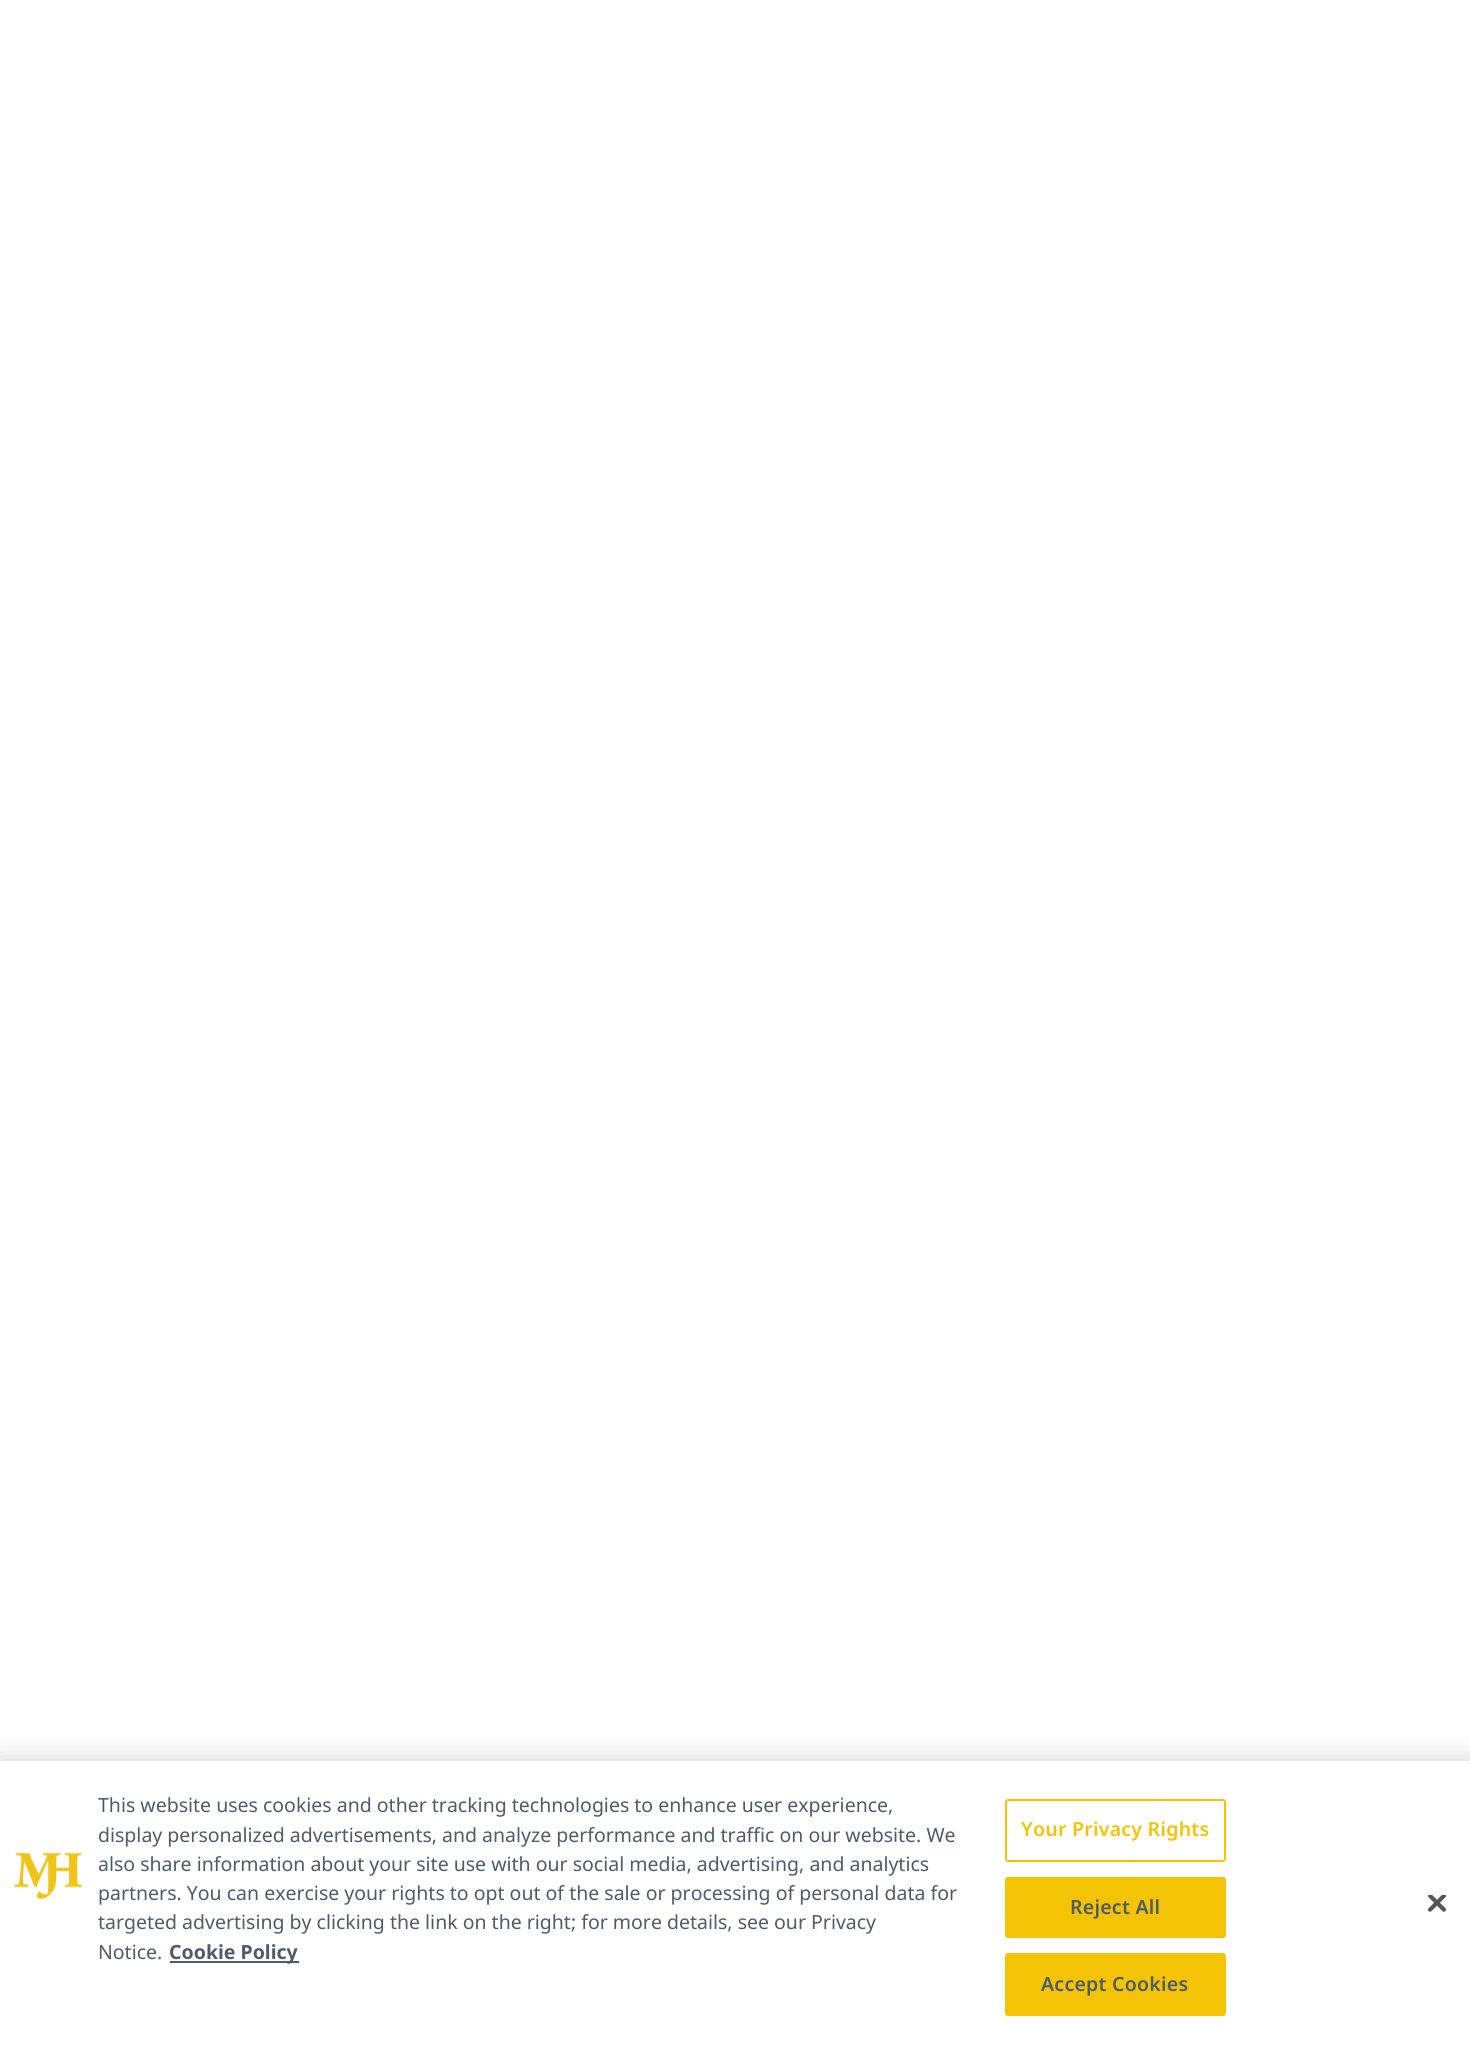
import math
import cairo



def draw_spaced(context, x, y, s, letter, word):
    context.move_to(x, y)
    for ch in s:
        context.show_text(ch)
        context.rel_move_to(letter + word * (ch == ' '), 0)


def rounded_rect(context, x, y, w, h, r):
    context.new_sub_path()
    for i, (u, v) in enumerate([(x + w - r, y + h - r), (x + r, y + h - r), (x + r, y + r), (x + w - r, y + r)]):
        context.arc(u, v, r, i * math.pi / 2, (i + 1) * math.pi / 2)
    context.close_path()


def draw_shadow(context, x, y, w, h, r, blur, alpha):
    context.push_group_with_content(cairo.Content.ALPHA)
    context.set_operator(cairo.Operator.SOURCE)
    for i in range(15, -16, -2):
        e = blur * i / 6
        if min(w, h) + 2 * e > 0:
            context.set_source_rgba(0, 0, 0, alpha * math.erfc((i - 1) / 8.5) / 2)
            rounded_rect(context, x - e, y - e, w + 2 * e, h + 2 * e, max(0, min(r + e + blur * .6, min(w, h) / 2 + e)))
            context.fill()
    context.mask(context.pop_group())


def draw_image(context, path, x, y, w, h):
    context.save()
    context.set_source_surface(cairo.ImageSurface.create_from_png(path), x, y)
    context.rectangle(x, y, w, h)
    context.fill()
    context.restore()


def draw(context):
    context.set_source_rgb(1, 1, 1)
    context.paint()
    context.set_source_rgb(0, 0, 0)
    draw_shadow(context, 0, 1761, 1470, 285, 0, 13.5, 0.2)
    context.set_source_rgb(1, 1, 1)
    context.rectangle(0, 1761, 1470, 284)
    context.fill()
    draw_image(context, "images/1.png", 13, 1852, 70, 48)
    context.set_source_rgb(76 / 255, 92 / 255, 107 / 255)
    context.rectangle(170, 1961, 129, 2)
    context.fill()
    rounded_rect(context, 1006, 1800, 219, 61, 2)
    context.set_source_rgb(244 / 255, 196 / 255, 4 / 255)
    context.stroke()
    rounded_rect(context, 1006, 1878, 219, 59, 2)
    context.fill_preserve()
    context.stroke()
    rounded_rect(context, 1006, 1954, 219, 61, 2)
    context.fill_preserve()
    context.stroke()
    draw_image(context, "images/2.png", 1428, 1895, 18, 17)
    context.select_font_face("Noto Sans")
    context.set_font_size(19.5)
    context.set_source_rgb(76 / 255, 92 / 255, 107 / 255)
    context.move_to(98, 1812)
    context.show_text("This website uses cookies and other tracking technologies to enhance user experience,")
    context.move_to(98, 1842)
    context.show_text("display personalized advertisements, and analyze performance and traffic on our website. We")
    context.move_to(98, 1871)
    context.show_text("also share information about your site use with our social media, advertising, and analytics")
    context.move_to(98, 1900)
    context.show_text("partners. You can exercise your rights to opt out of the sale or processing of personal data for")
    context.move_to(98, 1929)
    context.show_text("targeted advertising by clicking the link on the right; for more details, see our Privacy")
    context.move_to(98, 1959)
    context.show_text("Notice.")
    context.select_font_face("Noto Sans", cairo.FontSlant.NORMAL, cairo.FontWeight.BOLD)
    context.move_to(169, 1959)
    context.show_text("Cookie Policy")
    context.select_font_face("Noto Sans SemiBold")
    context.set_source_rgb(244 / 255, 196 / 255, 4 / 255)
    draw_spaced(context, 1021, 1836, "Your Privacy Rights", 0.25, 0)
    context.set_source_rgb(76 / 255, 92 / 255, 107 / 255)
    draw_spaced(context, 1070, 1914, "Reject All", 0.25, 0)
    draw_spaced(context, 1041, 1991, "Accept Cookies", 0.25, 0)


surface = cairo.ImageSurface(cairo.Format.RGB24, 1470, 2045)
context = cairo.Context(surface)
options = cairo.FontOptions()
options.set_hint_metrics(cairo.HintMetrics.OFF)
options.set_hint_style(cairo.HintStyle.NONE)
context.set_font_options(options)
context.set_miter_limit(4)
draw(context)
surface.write_to_png("out.png")
